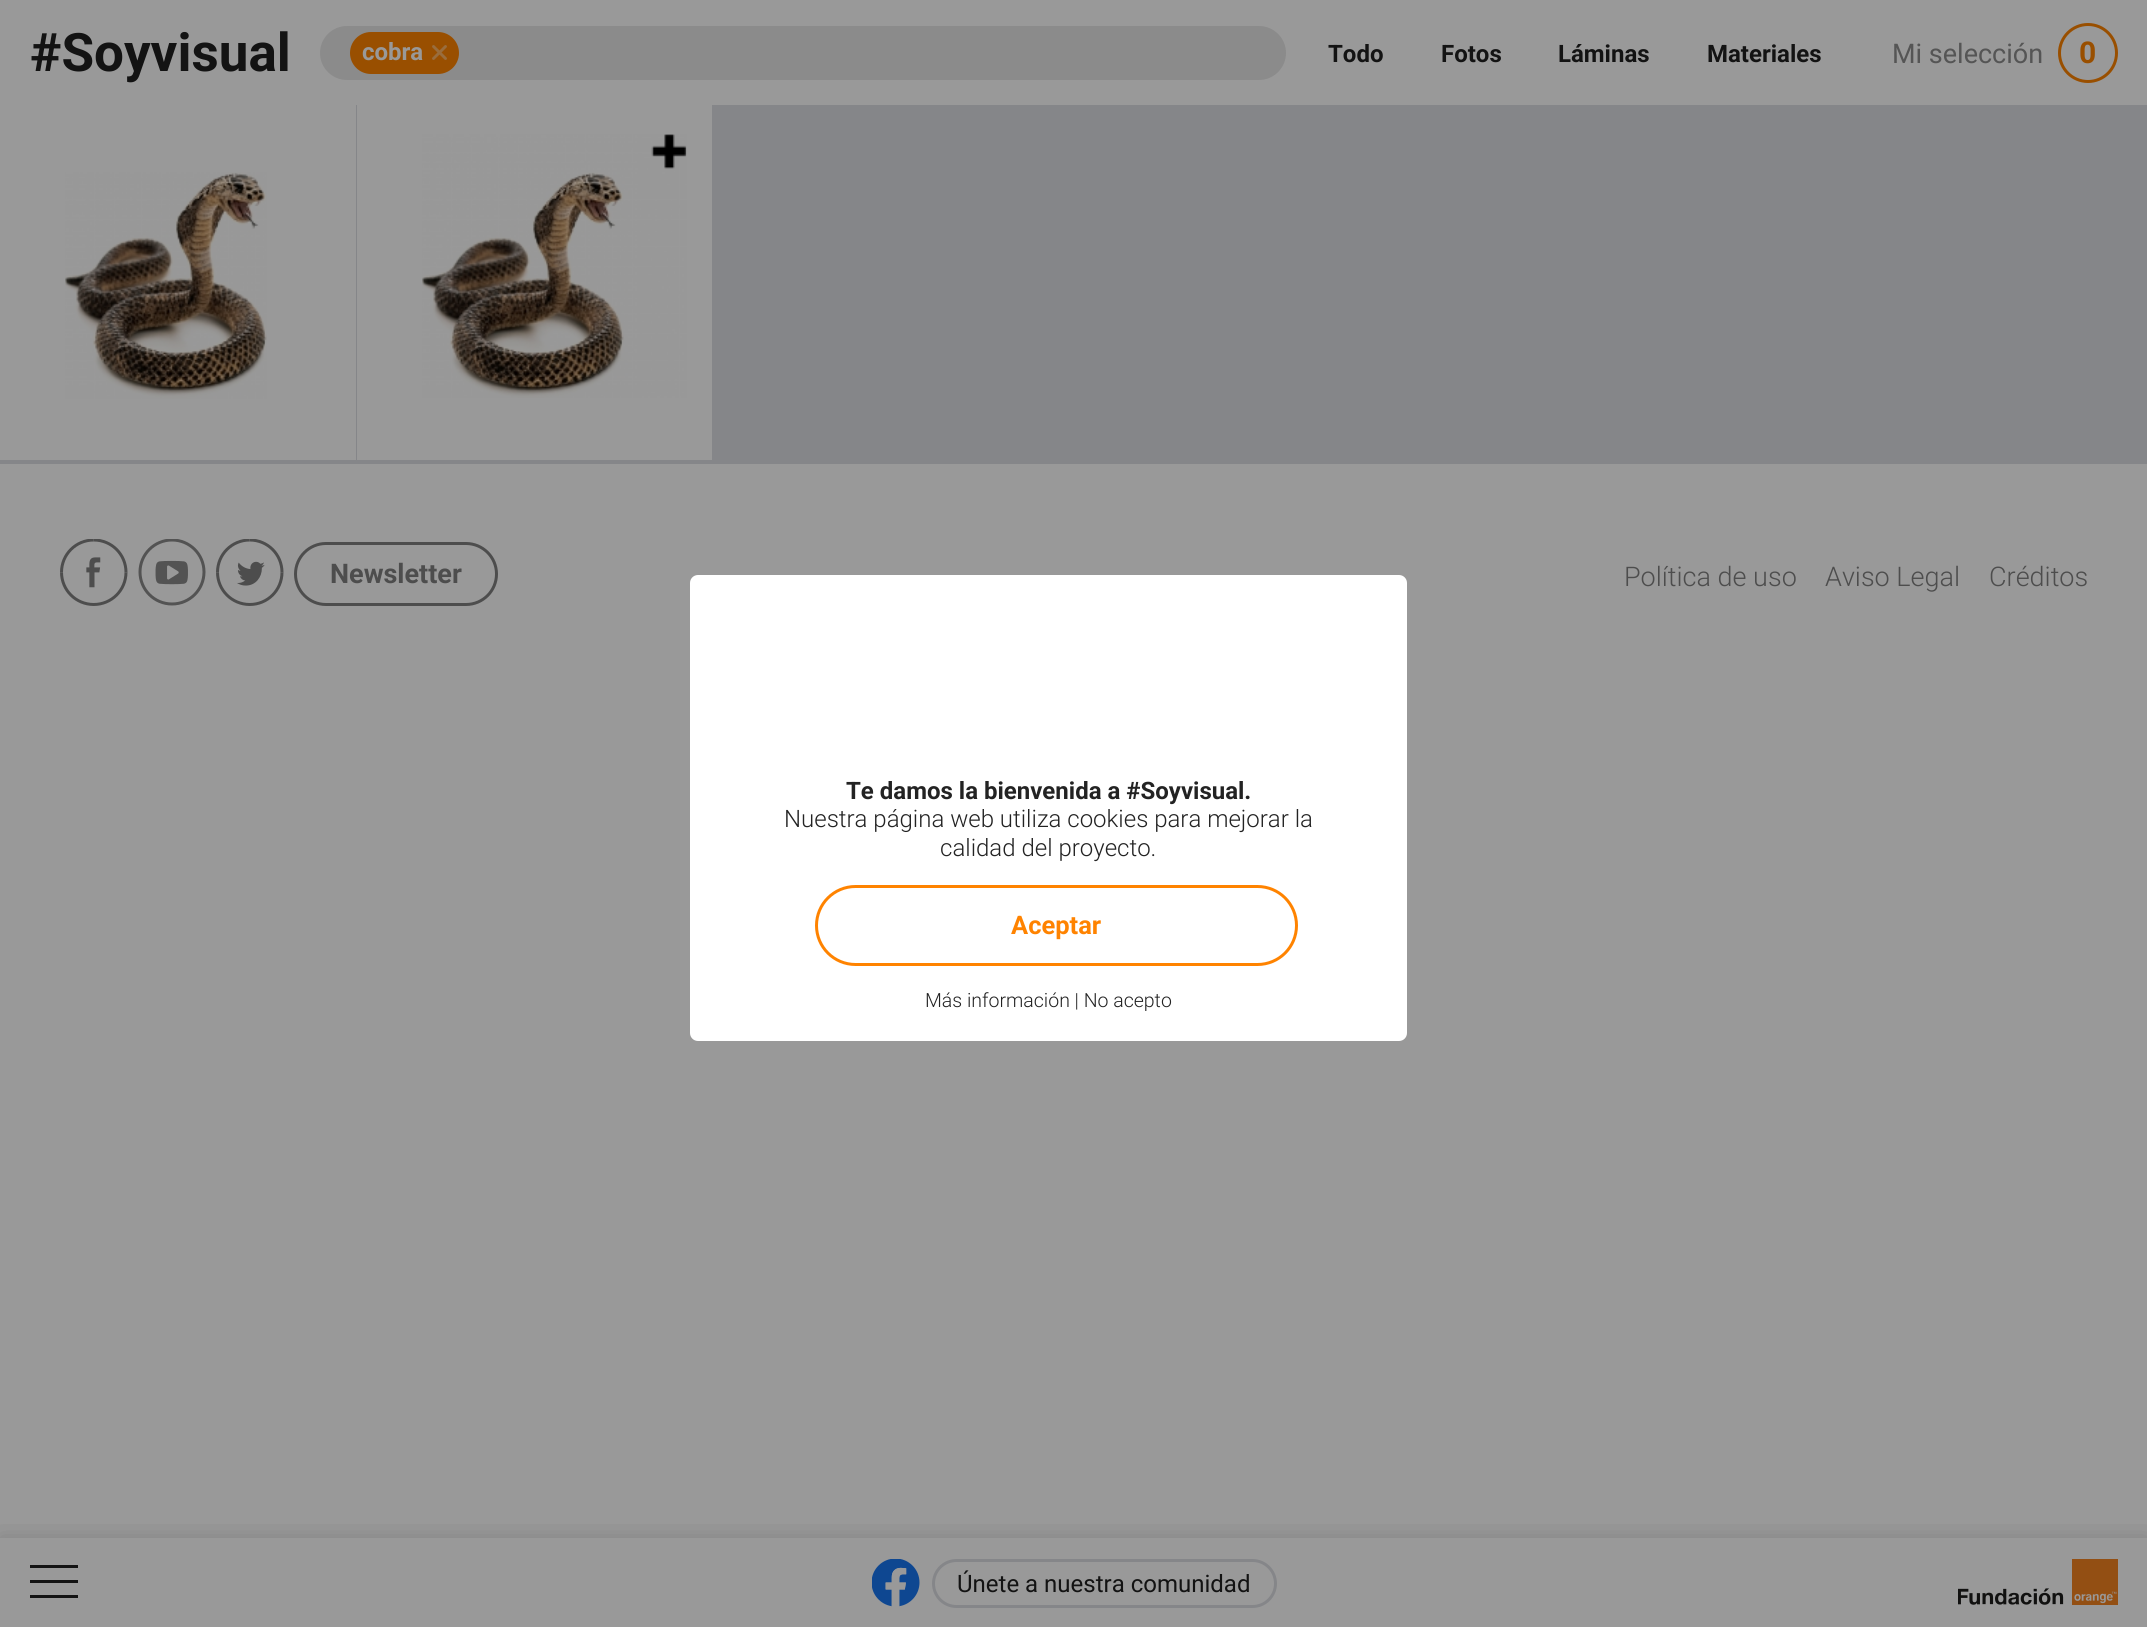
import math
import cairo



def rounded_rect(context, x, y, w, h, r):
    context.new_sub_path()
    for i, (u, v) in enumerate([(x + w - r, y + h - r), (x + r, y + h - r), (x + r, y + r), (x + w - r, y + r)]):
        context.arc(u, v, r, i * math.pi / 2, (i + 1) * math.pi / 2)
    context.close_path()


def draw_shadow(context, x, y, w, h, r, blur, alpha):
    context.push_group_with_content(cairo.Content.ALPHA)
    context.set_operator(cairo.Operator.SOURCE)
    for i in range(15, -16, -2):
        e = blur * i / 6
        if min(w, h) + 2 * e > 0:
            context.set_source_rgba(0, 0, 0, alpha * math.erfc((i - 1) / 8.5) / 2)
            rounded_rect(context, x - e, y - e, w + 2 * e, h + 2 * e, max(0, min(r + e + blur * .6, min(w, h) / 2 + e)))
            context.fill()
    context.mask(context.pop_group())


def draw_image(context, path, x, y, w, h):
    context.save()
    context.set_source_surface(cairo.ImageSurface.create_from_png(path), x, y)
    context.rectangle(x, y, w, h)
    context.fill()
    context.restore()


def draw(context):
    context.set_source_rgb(153 / 255, 153 / 255, 153 / 255)
    context.paint()
    context.set_source_rgb(139 / 255, 139 / 255, 139 / 255)
    rounded_rect(context, 320, 26, 966, 54, 27)
    context.fill()
    context.set_source_rgb(153 / 255, 79 / 255, 0)
    rounded_rect(context, 350, 32, 109, 42, 21)
    context.fill()
    context.new_path()
    context.move_to(433.5, 58.5)
    context.line_to(445.5, 46.5)
    context.move_to(433.5, 46.5)
    context.line_to(445.5, 58.5)
    context.set_source_rgb(153 / 255, 109 / 255, 61 / 255)
    context.set_line_width(2.9)
    context.set_line_cap(cairo.LineCap.ROUND)
    context.stroke()
    context.arc(2088, 53, 28.5, 0, 2 * math.pi)
    context.set_source_rgb(153 / 255, 79 / 255, 0)
    context.set_line_width(3)
    context.set_line_cap(cairo.LineCap.BUTT)
    context.stroke()
    context.set_source_rgb(133 / 255, 134 / 255, 137 / 255)
    context.rectangle(716, 105, 1431, 359)
    context.fill()
    context.save()
    context.rectangle(0, 105, 359, 359)
    context.clip()
    context.set_fill_rule(cairo.FillRule.EVEN_ODD)
    context.new_path()
    context.move_to(-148, -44)
    context.line_to(507, -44)
    context.line_to(507, 612)
    context.line_to(-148, 612)
    context.close_path()
    context.move_to(0, 105)
    context.line_to(356, 105)
    context.line_to(356, 460)
    context.line_to(0, 460)
    context.close_path()
    context.fill()
    context.restore()
    draw_image(context, "images/1.png", 65, 172, 202, 227)
    context.set_source_rgb(153 / 255, 153 / 255, 153 / 255)
    context.rectangle(357, 105, 2, 355)
    context.fill()
    context.save()
    context.rectangle(357, 105, 359, 359)
    context.clip()
    context.set_source_rgb(133 / 255, 134 / 255, 137 / 255)
    context.set_fill_rule(cairo.FillRule.EVEN_ODD)
    context.new_path()
    context.move_to(208, -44)
    context.line_to(864, -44)
    context.line_to(864, 612)
    context.line_to(208, 612)
    context.close_path()
    context.move_to(357, 105)
    context.line_to(712, 105)
    context.line_to(712, 460)
    context.line_to(357, 460)
    context.close_path()
    context.fill()
    context.restore()
    draw_image(context, "images/2.png", 422, 134, 265, 264)
    draw_image(context, "images/3.png", 60, 539, 68, 67)
    draw_image(context, "images/4.png", 138, 539, 68, 67)
    draw_image(context, "images/5.png", 216, 539, 68, 67)
    rounded_rect(context, 295.5, 543.5, 201, 61, 30.5)
    context.set_source_rgb(77 / 255, 77 / 255, 77 / 255)
    context.stroke()
    context.save()
    context.rectangle(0, 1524, 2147, 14)
    context.clip()
    context.set_source_rgb(16 / 255, 16 / 255, 16 / 255)
    draw_shadow(context, 0, 1536, 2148, 90, 0, 10.5, 0.15)
    context.restore()
    context.set_source_rgb(19 / 255, 19 / 255, 19 / 255)
    context.rectangle(30, 1580, 48, 3)
    context.fill()
    context.rectangle(30, 1565, 48, 3)
    context.fill()
    context.rectangle(30, 1595, 48, 3)
    context.fill()
    draw_image(context, "images/6.png", 872, 1559, 48, 48)
    rounded_rect(context, 933.5, 1560.5, 342, 46, 23)
    context.set_source_rgb(133 / 255, 134 / 255, 137 / 255)
    context.stroke()
    draw_image(context, "images/7.png", 1958, 1559, 160, 46)
    context.set_source_rgb(1, 1, 1)
    rounded_rect(context, 690, 575, 717, 466, 8)
    context.fill()
    rounded_rect(context, 816.5, 886.5, 480, 78, 39)
    context.set_source_rgb(1, 131 / 255, 0)
    context.stroke()
    context.select_font_face("Roboto", cairo.FontSlant.NORMAL, cairo.FontWeight.BOLD)
    context.set_font_size(53)
    context.set_source_rgb(19 / 255, 19 / 255, 19 / 255)
    context.move_to(30, 71)
    context.show_text("#Soyvisual")
    context.set_font_size(24)
    context.set_source_rgb(153 / 255, 153 / 255, 153 / 255)
    context.move_to(362, 60)
    context.show_text("cobra")
    context.set_source_rgb(19 / 255, 19 / 255, 19 / 255)
    context.move_to(1328, 62)
    context.show_text("Todo")
    context.move_to(1441, 62)
    context.show_text("Fotos")
    context.move_to(1558, 62)
    context.show_text("Láminas")
    context.move_to(1707, 62)
    context.show_text("Materiales")
    context.select_font_face("Roboto")
    context.set_font_size(27)
    context.set_source_rgb(85 / 255, 85 / 255, 85 / 255)
    context.move_to(1892, 63)
    context.show_text("Mi selección")
    context.select_font_face("Roboto", cairo.FontSlant.NORMAL, cairo.FontWeight.BOLD)
    context.set_font_size(30)
    context.set_source_rgb(153 / 255, 79 / 255, 0)
    context.move_to(2079, 63)
    context.show_text("0")
    context.set_font_size(27)
    context.set_source_rgb(77 / 255, 77 / 255, 77 / 255)
    context.move_to(330, 583)
    context.show_text("Newsletter")
    context.select_font_face("Roboto Light")
    context.move_to(1624, 586)
    context.show_text("Política de uso")
    context.move_to(1825, 586)
    context.show_text("Aviso Legal")
    context.move_to(1989, 586)
    context.show_text("Créditos")
    context.select_font_face("Roboto")
    context.set_font_size(24)
    context.set_source_rgb(19 / 255, 19 / 255, 19 / 255)
    context.move_to(957, 1592)
    context.show_text("Únete a nuestra comunidad")
    context.select_font_face("Roboto", cairo.FontSlant.NORMAL, cairo.FontWeight.BOLD)
    context.set_source_rgb(35 / 255, 35 / 255, 35 / 255)
    context.move_to(846, 799)
    context.show_text("Te damos la bienvenida a #Soyvisual.")
    context.select_font_face("Roboto Light")
    context.move_to(784, 827)
    context.show_text("Nuestra página web utiliza cookies para mejorar la")
    context.move_to(940, 856)
    context.show_text("calidad del proyecto.")
    context.set_font_size(19.5)
    context.move_to(925, 1007)
    context.show_text("Más información | No acepto")
    context.select_font_face("Roboto", cairo.FontSlant.NORMAL, cairo.FontWeight.BOLD)
    context.set_font_size(25.5)
    context.set_source_rgb(1, 131 / 255, 0)
    context.move_to(1011, 934)
    context.show_text("Aceptar")


surface = cairo.ImageSurface(cairo.Format.RGB24, 2147, 1627)
context = cairo.Context(surface)
options = cairo.FontOptions()
options.set_hint_metrics(cairo.HintMetrics.OFF)
options.set_hint_style(cairo.HintStyle.NONE)
context.set_font_options(options)
context.set_miter_limit(4)
draw(context)
surface.write_to_png("out.png")
